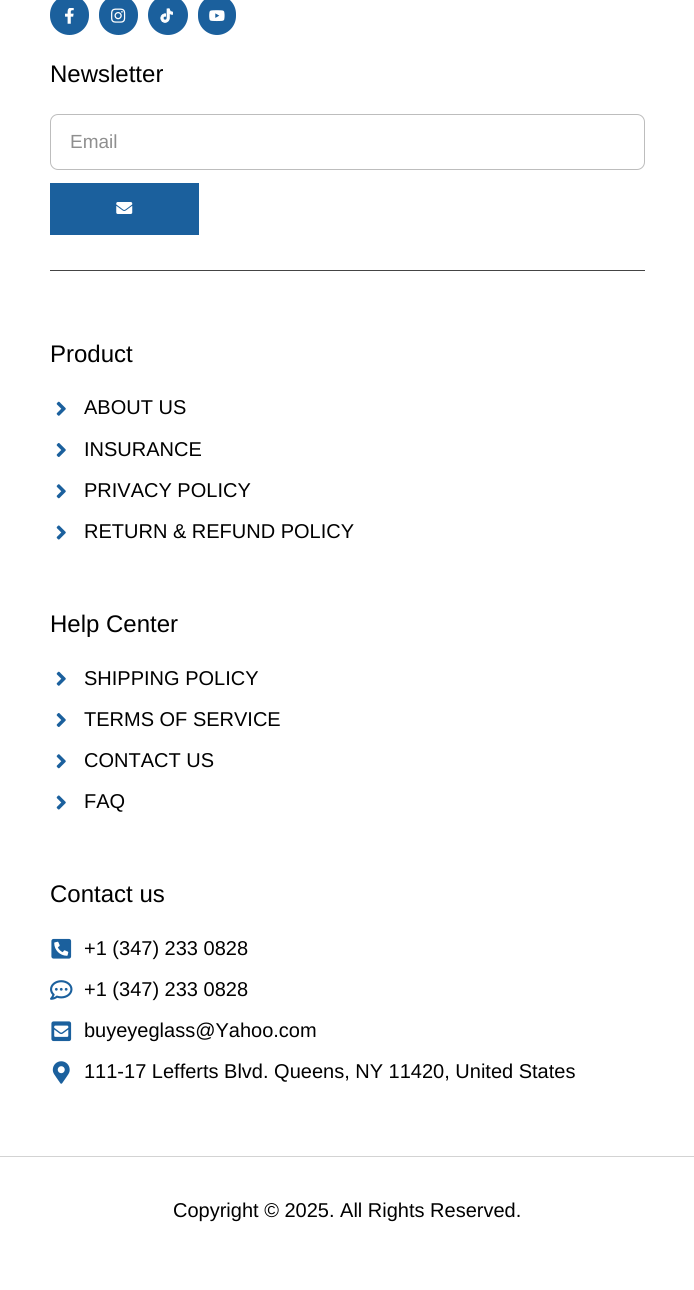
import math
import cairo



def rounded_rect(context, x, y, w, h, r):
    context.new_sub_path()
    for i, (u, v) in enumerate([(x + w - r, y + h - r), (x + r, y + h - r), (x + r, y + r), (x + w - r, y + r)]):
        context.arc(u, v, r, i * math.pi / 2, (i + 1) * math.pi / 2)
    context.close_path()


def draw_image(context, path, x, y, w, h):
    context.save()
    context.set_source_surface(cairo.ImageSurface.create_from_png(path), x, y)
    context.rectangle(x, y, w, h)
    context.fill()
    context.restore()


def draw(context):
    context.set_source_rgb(1, 1, 1)
    context.paint()
    context.set_source_rgb(68 / 255, 68 / 255, 68 / 255)
    context.rectangle(50, 270, 595, 1)
    context.fill()
    context.set_source_rgb(27 / 255, 96 / 255, 157 / 255)
    rounded_rect(context, 50, -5, 39, 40, 19.5)
    context.fill()
    draw_image(context, "images/1.png", 65, 8, 9, 16)
    rounded_rect(context, 99, -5, 39, 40, 19.5)
    context.fill()
    draw_image(context, "images/2.png", 111, 8, 15, 15)
    context.arc(168, 15, 20, 0, 2 * math.pi)
    context.fill()
    draw_image(context, "images/3.png", 160, 8, 13, 15)
    rounded_rect(context, 198, -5, 38, 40, 19)
    context.fill()
    draw_image(context, "images/4.png", 209, 10, 16, 12)
    rounded_rect(context, 50.5, 114.5, 594, 55, 7.5)
    context.set_source_rgb(189 / 255, 189 / 255, 189 / 255)
    context.set_line_width(1)
    context.stroke()
    context.set_source_rgb(27 / 255, 96 / 255, 157 / 255)
    context.rectangle(50, 183, 149, 52)
    context.fill()
    draw_image(context, "images/5.png", 116, 202, 17, 12)
    draw_image(context, "images/6.png", 56, 401, 10, 15)
    draw_image(context, "images/7.png", 56, 443, 10, 14)
    draw_image(context, "images/8.png", 56, 484, 10, 15)
    draw_image(context, "images/9.png", 56, 525, 10, 15)
    draw_image(context, "images/6.png", 56, 671, 10, 15)
    draw_image(context, "images/7.png", 56, 713, 10, 14)
    draw_image(context, "images/8.png", 56, 754, 10, 15)
    draw_image(context, "images/9.png", 56, 795, 10, 15)
    draw_image(context, "images/10.png", 51, 938, 21, 21)
    draw_image(context, "images/11.png", 50, 980, 23, 20)
    draw_image(context, "images/12.png", 51, 1021, 21, 21)
    draw_image(context, "images/13.png", 52, 1061, 18, 23)
    context.set_source_rgb(211 / 255, 211 / 255, 211 / 255)
    context.rectangle(0, 1156, 694, 1)
    context.fill()
    context.select_font_face("Liberation Sans")
    context.set_font_size(24)
    context.set_source_rgb(0, 0, 0)
    context.move_to(50, 82)
    context.show_text("Newsletter")
    context.set_font_size(19)
    context.set_source_rgb(143 / 255, 143 / 255, 143 / 255)
    context.move_to(70, 148)
    context.show_text("Email")
    context.set_font_size(24)
    context.set_source_rgb(0, 0, 0)
    context.move_to(50, 362)
    context.show_text("Product")
    context.set_font_size(20)
    context.move_to(84, 414)
    context.show_text("ABOUT US")
    context.move_to(84, 456)
    context.show_text("INSURANCE")
    context.move_to(84, 497)
    context.show_text("PRIVACY POLICY")
    context.move_to(84, 538)
    context.show_text("RETURN & REFUND POLICY")
    context.set_font_size(24)
    context.move_to(50, 632)
    context.show_text("Help Center")
    context.set_font_size(20)
    context.move_to(84, 685)
    context.show_text("SHIPPING POLICY")
    context.move_to(84, 726)
    context.show_text("TERMS OF SERVICE")
    context.move_to(84, 767)
    context.show_text("CONTACT US")
    context.move_to(84, 808)
    context.show_text("FAQ")
    context.set_font_size(24)
    context.move_to(50, 902)
    context.show_text("Contact us")
    context.set_font_size(20)
    context.move_to(84, 955)
    context.show_text("+1 (347) 233 0828")
    context.move_to(84, 996)
    context.show_text("+1 (347) 233 0828")
    context.move_to(84, 1037)
    context.show_text("buyeyeglass@Yahoo.com")
    context.move_to(84, 1078)
    context.show_text("111-17 Lefferts Blvd. Queens, NY 11420, United States")
    context.move_to(173, 1217)
    context.show_text("Copyright © 2025. All Rights Reserved.")


surface = cairo.ImageSurface(cairo.Format.RGB24, 694, 1290)
context = cairo.Context(surface)
options = cairo.FontOptions()
options.set_hint_metrics(cairo.HintMetrics.OFF)
options.set_hint_style(cairo.HintStyle.NONE)
context.set_font_options(options)
context.set_miter_limit(4)
draw(context)
surface.write_to_png("out.png")
